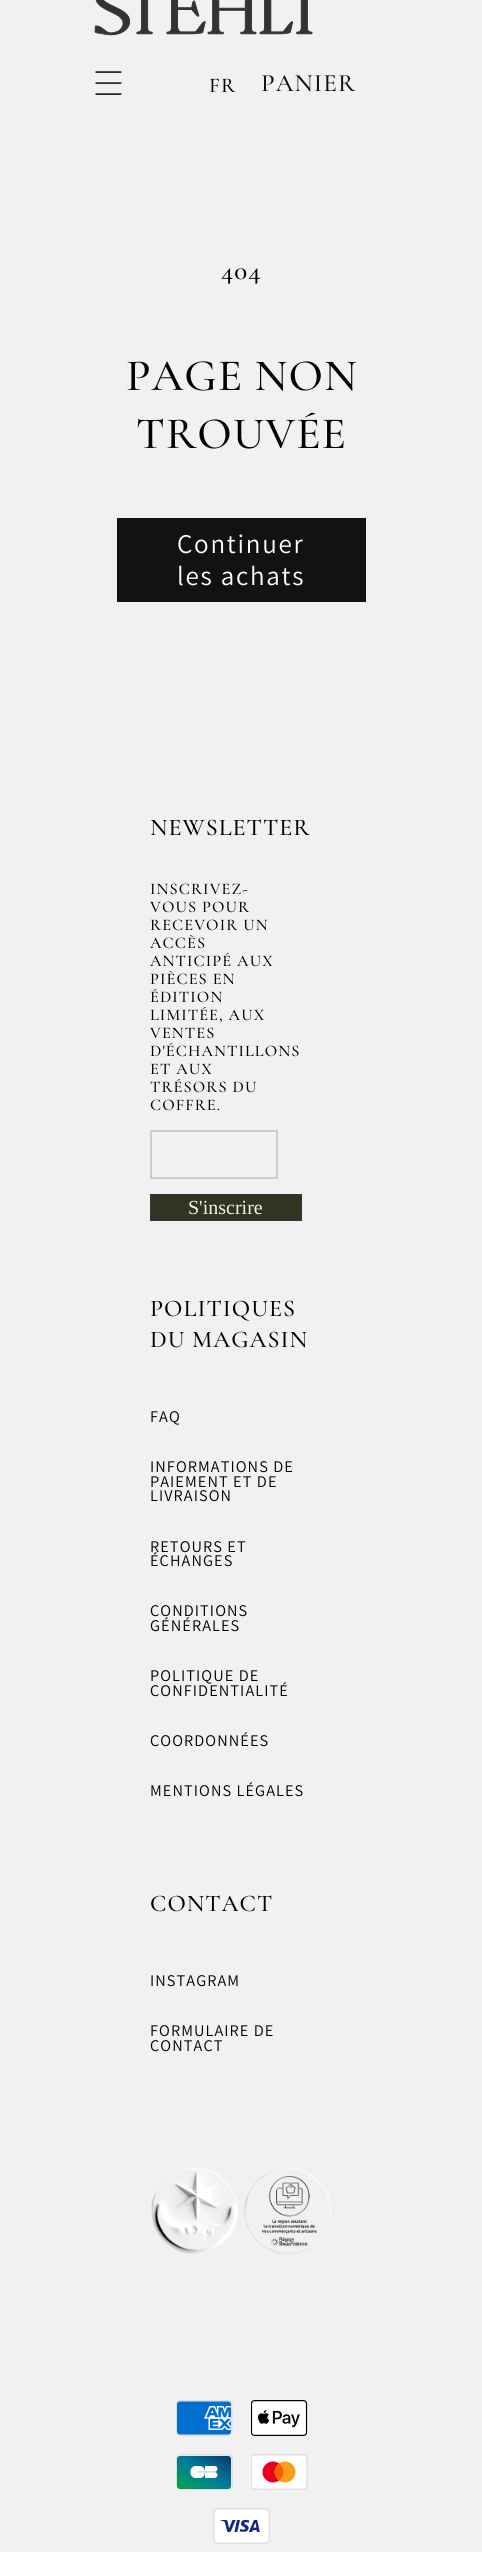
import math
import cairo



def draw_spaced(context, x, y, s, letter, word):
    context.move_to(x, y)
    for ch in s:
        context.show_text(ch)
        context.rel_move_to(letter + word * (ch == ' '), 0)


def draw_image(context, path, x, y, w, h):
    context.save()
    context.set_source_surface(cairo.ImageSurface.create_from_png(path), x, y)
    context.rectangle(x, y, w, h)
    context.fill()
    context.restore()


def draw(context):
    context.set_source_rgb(241 / 255, 241 / 255, 241 / 255)
    context.paint()
    draw_image(context, "images/1.png", 94, 0, 219, 36)
    draw_image(context, "images/2.png", 95, 71, 27, 24)
    context.set_source_rgb(18 / 255, 18 / 255, 18 / 255)
    context.rectangle(117, 518, 249, 84)
    context.fill()
    context.rectangle(151, 1131, 126, 47)
    context.set_source_rgb(204 / 255, 204 / 255, 204 / 255)
    context.stroke()
    context.set_source_rgb(51 / 255, 51 / 255, 34 / 255)
    context.rectangle(151, 1195, 150, 25)
    context.fill_preserve()
    context.set_source_rgb(51 / 255, 51 / 255, 51 / 255)
    context.stroke()
    draw_image(context, "images/3.png", 151, 2167, 87, 87)
    draw_image(context, "images/4.png", 244, 2167, 87, 88)
    draw_image(context, "images/5.png", 176, 2400, 57, 36)
    draw_image(context, "images/6.png", 251, 2400, 57, 36)
    draw_image(context, "images/7.png", 176, 2454, 57, 36)
    draw_image(context, "images/8.png", 251, 2454, 57, 36)
    draw_image(context, "images/9.png", 213, 2508, 57, 36)
    context.select_font_face("Cormorant Garamond Medium")
    context.set_font_size(21)
    context.set_source_rgb(0, 0, 0)
    draw_spaced(context, 209, 92, "FR", 1.1, 0)
    context.set_font_size(25)
    context.set_source_rgb(18 / 255, 18 / 255, 18 / 255)
    draw_spaced(context, 261, 91, "PANIER", 1.1, 0)
    context.set_font_size(27)
    context.set_source_rgb(0, 0, 0)
    draw_spaced(context, 221, 279, "404", 1.1, 0)
    context.set_font_size(45)
    draw_spaced(context, 126, 390, "PAGE NON", 1, 0)
    draw_spaced(context, 136, 448, "TROUVÉE", 1, 0)
    context.select_font_face("Assistant")
    context.set_font_size(27)
    context.set_source_rgb(1, 1, 1)
    draw_spaced(context, 177, 553, "Continuer", 1.75, 0)
    draw_spaced(context, 177, 585, "les achats", 1.75, 0)
    context.select_font_face("Cormorant Garamond Medium")
    context.set_font_size(24)
    context.set_source_rgb(0, 0, 0)
    draw_spaced(context, 150, 835, "NEWSLETTER", 1, 0)
    context.set_font_size(16.25)
    draw_spaced(context, 150, 894, "INSCRIVEZ-", 1.1, 0)
    draw_spaced(context, 150, 912, "VOUS POUR", 1.1, 0)
    draw_spaced(context, 150, 930, "RECEVOIR UN", 1.1, 0)
    draw_spaced(context, 150, 948, "ACCÈS", 1.1, 0)
    draw_spaced(context, 150, 966, "ANTICIPÉ AUX", 1.1, 0)
    draw_spaced(context, 150, 984, "PIÈCES EN", 1.1, 0)
    draw_spaced(context, 150, 1002, "ÉDITION", 1.1, 0)
    draw_spaced(context, 150, 1020, "LIMITÉE, AUX", 1.1, 0)
    draw_spaced(context, 150, 1038, "VENTES", 1.1, 0)
    draw_spaced(context, 150, 1056, "D'ÉCHANTILLONS", 1.1, 0)
    draw_spaced(context, 150, 1074, "ET AUX", 1.1, 0)
    draw_spaced(context, 150, 1092, "TRÉSORS DU", 1.1, 0)
    draw_spaced(context, 150, 1110, "COFFRE.", 1.1, 0)
    context.select_font_face("Liberation Serif")
    context.set_font_size(20)
    context.set_source_rgb(241 / 255, 241 / 255, 241 / 255)
    context.move_to(188, 1214)
    context.show_text("S'inscrire")
    context.select_font_face("Cormorant Garamond Medium")
    context.set_font_size(24)
    context.set_source_rgb(0, 0, 0)
    draw_spaced(context, 150, 1316, "POLITIQUES", 1, 0)
    draw_spaced(context, 150, 1347, "DU MAGASIN", 1, 0)
    context.select_font_face("Assistant")
    context.set_font_size(16.25)
    draw_spaced(context, 150, 1422, "FAQ", 1.1, 0)
    draw_spaced(context, 150, 1472, "INFORMATIONS DE", 1.1, 0)
    draw_spaced(context, 150, 1487, "PAIEMENT ET DE", 1.1, 0)
    draw_spaced(context, 150, 1501, "LIVRAISON", 1.1, 0)
    draw_spaced(context, 150, 1552, "RETOURS ET", 1.1, 0)
    draw_spaced(context, 150, 1566, "ÉCHANGES", 1.1, 0)
    draw_spaced(context, 150, 1616, "CONDITIONS", 1.1, 0)
    draw_spaced(context, 150, 1631, "GÉNÉRALES", 1.1, 0)
    draw_spaced(context, 150, 1681, "POLITIQUE DE", 1.1, 0)
    draw_spaced(context, 150, 1696, "CONFIDENTIALITÉ", 1.1, 0)
    draw_spaced(context, 150, 1746, "COORDONNÉES", 1.1, 0)
    draw_spaced(context, 150, 1796, "MENTIONS LÉGALES", 1.1, 0)
    context.select_font_face("Cormorant Garamond Medium")
    context.set_font_size(24)
    draw_spaced(context, 150, 1911, "CONTACT", 1, 0)
    context.select_font_face("Assistant")
    context.set_font_size(16.25)
    draw_spaced(context, 150, 1986, "INSTAGRAM", 1.1, 0)
    draw_spaced(context, 150, 2036, "FORMULAIRE DE", 1.1, 0)
    draw_spaced(context, 150, 2051, "CONTACT", 1.1, 0)


surface = cairo.ImageSurface(cairo.Format.RGB24, 482, 2552)
context = cairo.Context(surface)
options = cairo.FontOptions()
options.set_hint_metrics(cairo.HintMetrics.OFF)
options.set_hint_style(cairo.HintStyle.NONE)
context.set_font_options(options)
context.set_miter_limit(4)
draw(context)
surface.write_to_png("out.png")
